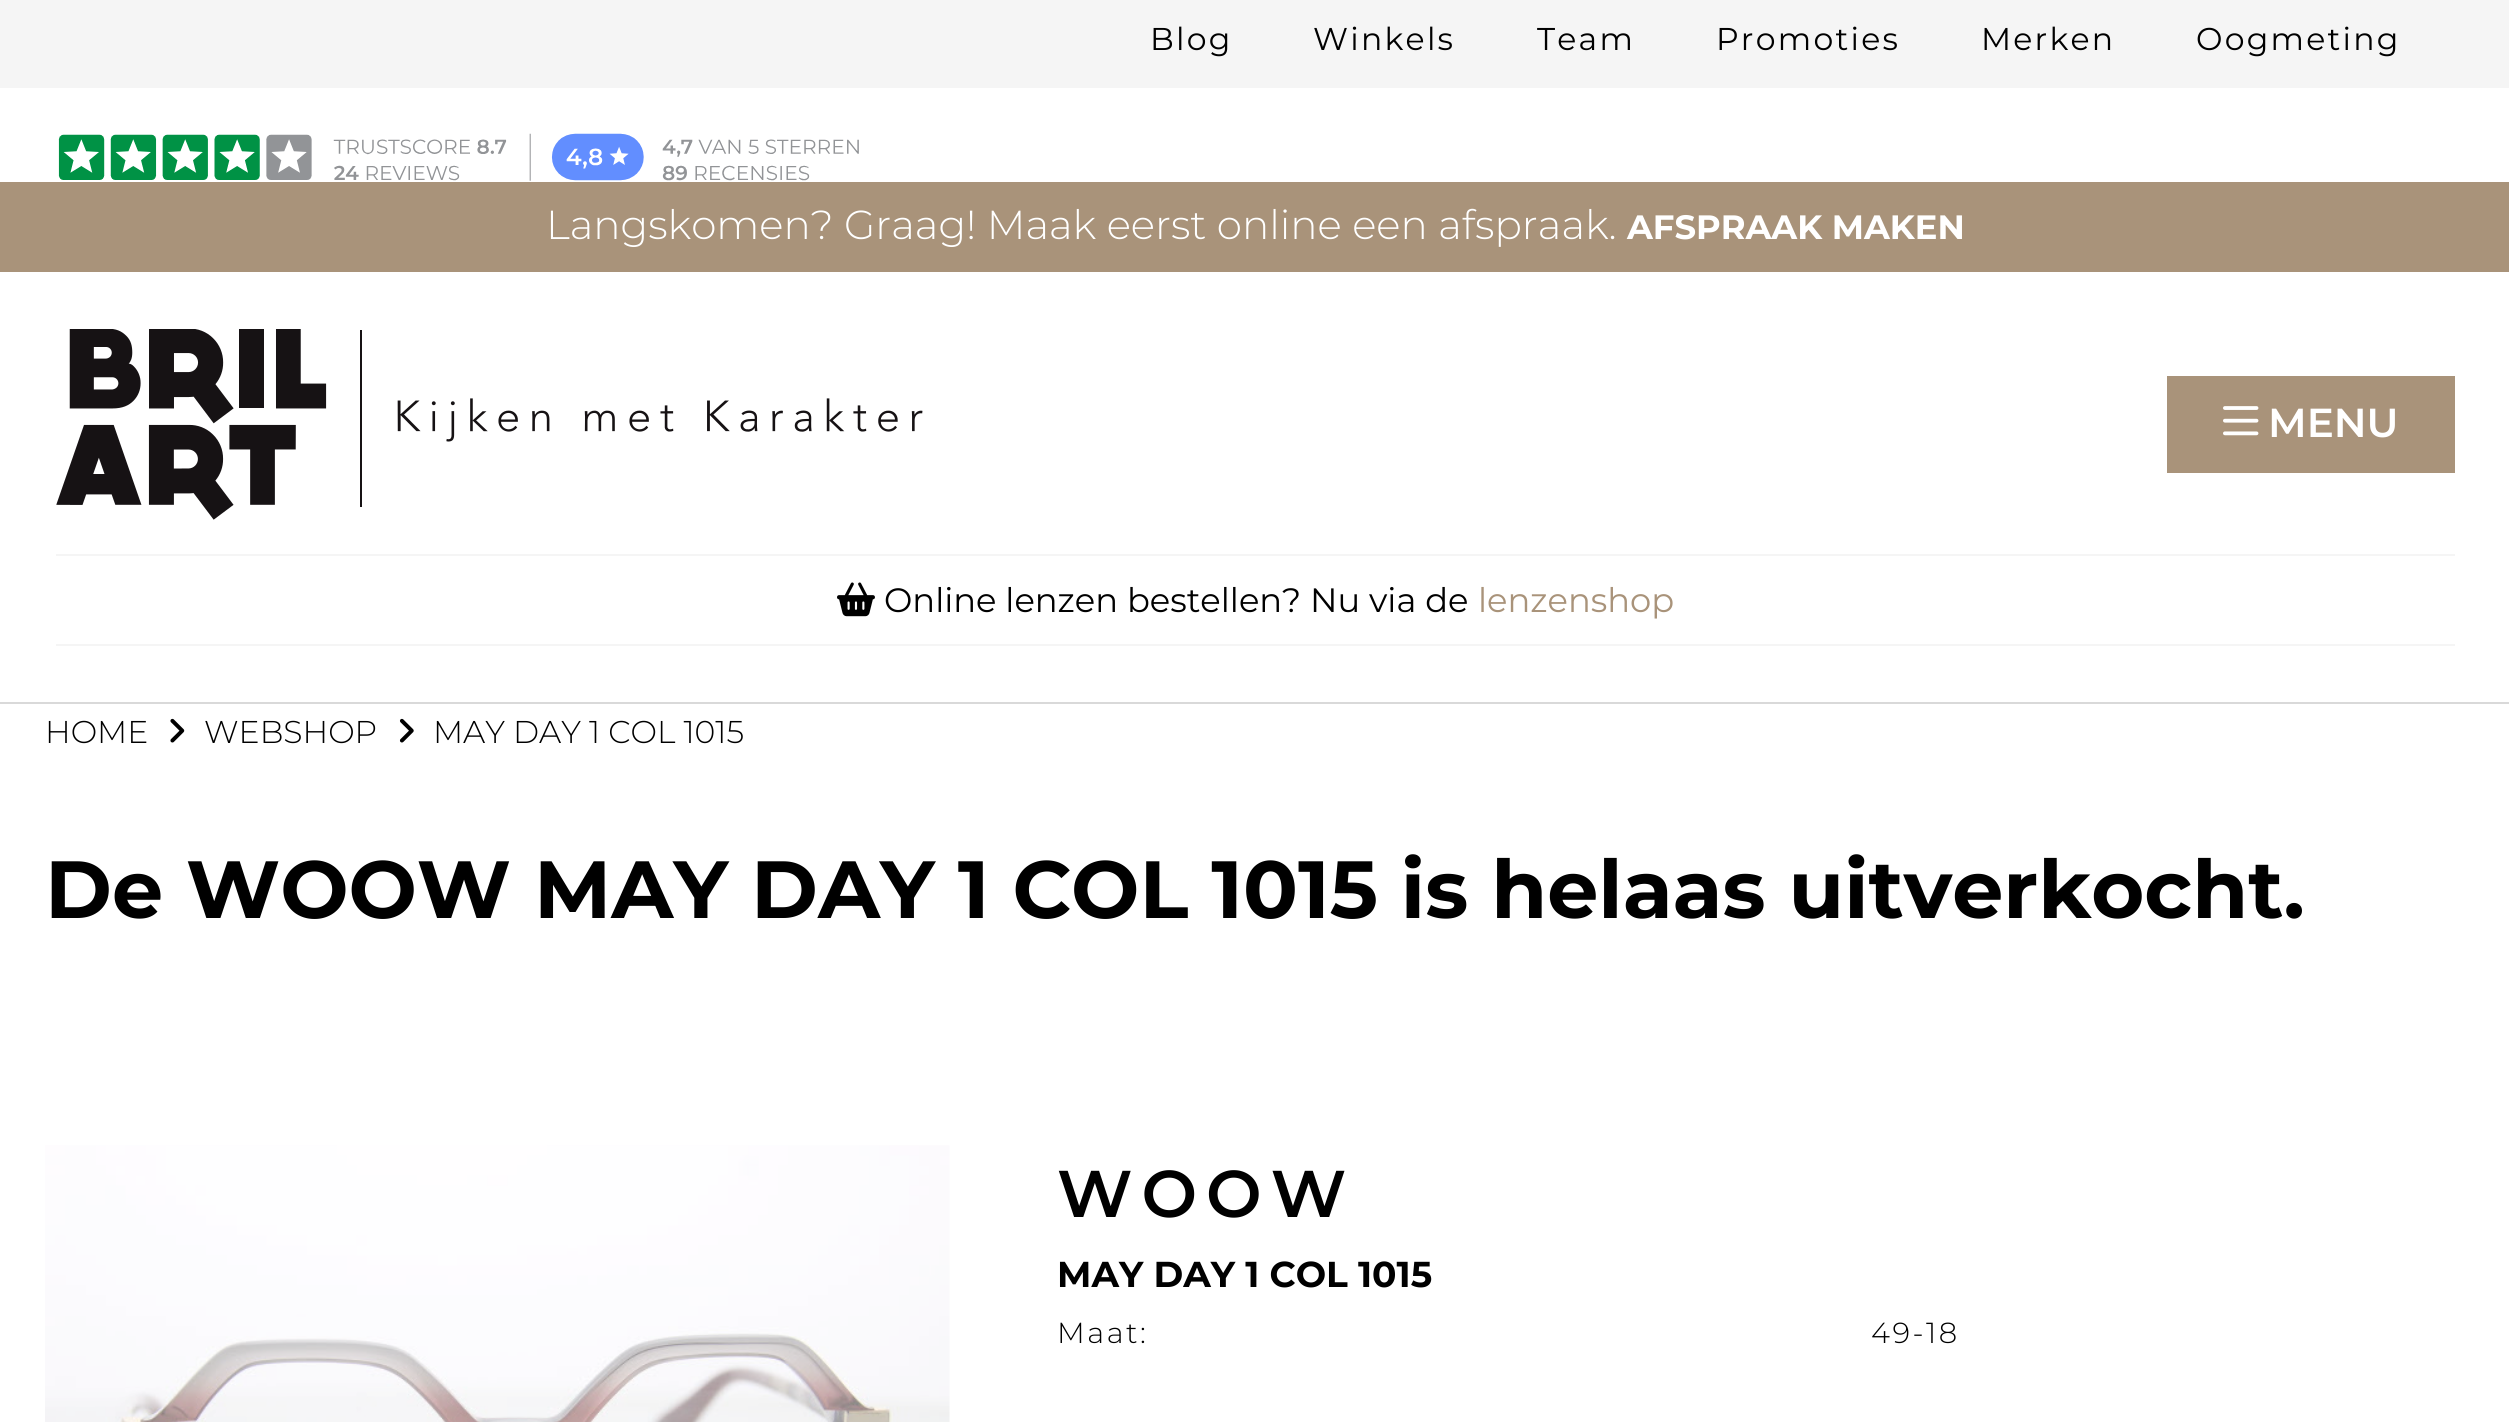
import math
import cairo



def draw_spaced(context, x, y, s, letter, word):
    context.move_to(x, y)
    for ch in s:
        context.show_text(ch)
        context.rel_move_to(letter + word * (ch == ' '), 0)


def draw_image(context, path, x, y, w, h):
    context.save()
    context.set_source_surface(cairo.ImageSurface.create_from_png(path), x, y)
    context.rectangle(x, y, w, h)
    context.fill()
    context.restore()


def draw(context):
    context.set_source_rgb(1, 1, 1)
    context.paint()
    context.set_source_rgb(245 / 255, 245 / 255, 245 / 255)
    context.rectangle(0, 0, 2509, 88)
    context.fill()
    draw_image(context, "images/1.png", 58, 133, 801, 48)
    context.set_source_rgb(169 / 255, 147 / 255, 122 / 255)
    context.rectangle(0, 182, 2509, 90)
    context.fill()
    context.set_source_rgb(217 / 255, 217 / 255, 217 / 255)
    context.rectangle(0, 702, 2509, 2)
    context.fill()
    draw_image(context, "images/2.png", 56, 329, 867, 191)
    context.set_source_rgb(169 / 255, 147 / 255, 122 / 255)
    context.rectangle(2167, 376, 288, 97)
    context.fill()
    draw_image(context, "images/3.png", 2223, 406, 36, 30)
    context.set_source_rgb(245 / 255, 245 / 255, 245 / 255)
    context.rectangle(56, 554, 2399, 2)
    context.fill()
    context.rectangle(56, 644, 2399, 2)
    context.fill()
    draw_image(context, "images/4.png", 837, 582, 38, 35)
    draw_image(context, "images/5.png", 170, 718, 15, 25)
    draw_image(context, "images/6.png", 399, 718, 15, 25)
    draw_image(context, "images/7.png", 45, 1145, 905, 277)
    context.select_font_face("Montserrat")
    context.set_font_size(31.5)
    context.set_source_rgb(0, 0, 0)
    draw_spaced(context, 1150, 50, "Blog", 2.25, 0)
    draw_spaced(context, 1313, 50, "Winkels", 2.25, 0)
    draw_spaced(context, 1537, 50, "Team", 2.25, 0)
    draw_spaced(context, 1716, 50, "Promoties", 2.25, 0)
    draw_spaced(context, 1981, 50, "Merken", 2.25, 0)
    draw_spaced(context, 2196, 50, "Oogmeting", 2.25, 0)
    context.select_font_face("Montserrat Light")
    context.set_font_size(40.5)
    context.set_source_rgb(1, 1, 1)
    context.move_to(546, 239)
    context.show_text("Langskomen? Graag! Maak eerst online een afspraak.")
    context.select_font_face("Montserrat", cairo.FontSlant.NORMAL, cairo.FontWeight.BOLD)
    context.set_font_size(33.75)
    context.move_to(1627, 239)
    context.show_text("AFSPRAAK MAKEN")
    context.select_font_face("Montserrat SemiBold")
    context.set_font_size(40.5)
    context.move_to(2268, 437)
    context.show_text("MENU")
    context.select_font_face("Montserrat")
    context.set_font_size(33.75)
    context.set_source_rgb(0, 0, 0)
    context.move_to(884, 612)
    context.show_text("Online lenzen bestellen? Nu via de")
    context.set_source_rgb(169 / 255, 147 / 255, 122 / 255)
    context.move_to(1478, 612)
    context.show_text("lenzenshop")
    context.select_font_face("Montserrat Light")
    context.set_font_size(31.5)
    context.set_source_rgb(0, 0, 0)
    context.move_to(45, 743)
    context.show_text("HOME")
    context.move_to(204, 743)
    context.show_text("WEBSHOP")
    context.move_to(433, 743)
    context.show_text("MAY DAY 1 COL 1015")
    context.select_font_face("Montserrat", cairo.FontSlant.NORMAL, cairo.FontWeight.BOLD)
    context.set_font_size(81)
    context.move_to(45, 918)
    context.show_text("De WOOW MAY DAY 1 COL 1015 is helaas uitverkocht.")
    context.select_font_face("Montserrat SemiBold")
    context.set_font_size(66)
    draw_spaced(context, 1057, 1217, "WOOW", 9, 0)
    context.select_font_face("Montserrat", cairo.FontSlant.NORMAL, cairo.FontWeight.BOLD)
    context.set_font_size(36)
    context.move_to(1057, 1287)
    context.show_text("MAY DAY 1 COL 1015")
    context.select_font_face("Montserrat Light")
    context.set_font_size(29)
    draw_spaced(context, 1057, 1343, "Maat:", 2.5, 0)
    draw_spaced(context, 1871, 1343, "49-18", 2.5, 0)


surface = cairo.ImageSurface(cairo.Format.RGB24, 2509, 1422)
context = cairo.Context(surface)
options = cairo.FontOptions()
options.set_hint_metrics(cairo.HintMetrics.OFF)
options.set_hint_style(cairo.HintStyle.NONE)
context.set_font_options(options)
context.set_miter_limit(4)
draw(context)
surface.write_to_png("out.png")
